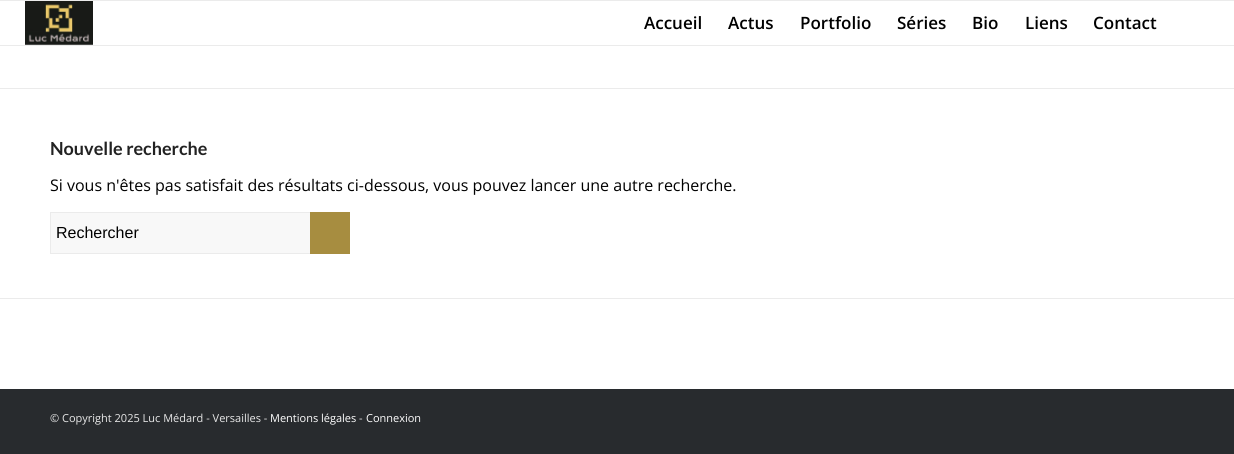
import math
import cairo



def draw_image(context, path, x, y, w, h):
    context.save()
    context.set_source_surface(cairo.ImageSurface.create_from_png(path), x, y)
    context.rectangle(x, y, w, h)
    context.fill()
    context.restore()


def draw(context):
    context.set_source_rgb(40 / 255, 43 / 255, 46 / 255)
    context.paint()
    context.set_source_rgb(235 / 255, 235 / 255, 235 / 255)
    context.rectangle(0, 0, 1234, 1)
    context.fill()
    context.set_source_rgb(1, 1, 1)
    context.rectangle(0, 1, 1234, 388)
    context.fill()
    context.set_source_rgb(235 / 255, 235 / 255, 235 / 255)
    context.rectangle(0, 45, 1234, 1)
    context.fill()
    draw_image(context, "images/1.png", 25, 1, 68, 44)
    context.rectangle(0, 88, 1234, 1)
    context.fill()
    context.set_source_rgb(248 / 255, 248 / 255, 248 / 255)
    context.rectangle(51, 213, 259, 40)
    context.fill()
    context.rectangle(50.5, 212.5, 299, 41)
    context.set_source_rgb(235 / 255, 235 / 255, 235 / 255)
    context.set_line_width(1)
    context.stroke()
    context.set_source_rgb(167 / 255, 141 / 255, 64 / 255)
    context.rectangle(310, 212, 40, 42)
    context.fill()
    context.set_source_rgb(235 / 255, 235 / 255, 235 / 255)
    context.rectangle(0, 298, 1234, 1)
    context.fill()
    context.select_font_face("Open Sans SemiBold")
    context.set_font_size(17)
    context.set_source_rgb(0, 0, 0)
    context.move_to(644, 29)
    context.show_text("Accueil")
    context.move_to(728, 29)
    context.show_text("Actus")
    context.move_to(800, 29)
    context.show_text("Portfolio")
    context.move_to(897, 29)
    context.show_text("Séries")
    context.move_to(972, 29)
    context.show_text("Bio")
    context.move_to(1025, 29)
    context.show_text("Liens")
    context.move_to(1093, 29)
    context.show_text("Contact")
    context.select_font_face("Lato", cairo.FontSlant.NORMAL, cairo.FontWeight.BOLD)
    context.set_font_size(18)
    context.set_source_rgb(34 / 255, 34 / 255, 34 / 255)
    context.move_to(50, 155)
    context.show_text("Nouvelle recherche")
    context.select_font_face("Open Sans")
    context.set_font_size(16)
    context.set_source_rgb(0, 0, 0)
    context.move_to(50, 191)
    context.show_text("Si vous n'êtes pas satisfait des résultats ci-dessous, vous pouvez lancer une autre recherche.")
    context.select_font_face("Liberation Sans")
    context.move_to(56, 238)
    context.show_text("Rechercher")
    context.select_font_face("Open Sans")
    context.set_font_size(11)
    context.set_source_rgb(232 / 255, 232 / 255, 232 / 255)
    context.move_to(50, 422)
    context.show_text("© Copyright 2025 Luc Médard - Versailles -")
    context.set_source_rgb(1, 1, 1)
    context.move_to(270, 422)
    context.show_text("Mentions légales")
    context.set_source_rgb(232 / 255, 232 / 255, 232 / 255)
    context.move_to(359, 422)
    context.show_text("-")
    context.set_source_rgb(1, 1, 1)
    context.move_to(366, 422)
    context.show_text("Connexion")


surface = cairo.ImageSurface(cairo.Format.RGB24, 1234, 454)
context = cairo.Context(surface)
options = cairo.FontOptions()
options.set_hint_metrics(cairo.HintMetrics.OFF)
options.set_hint_style(cairo.HintStyle.NONE)
context.set_font_options(options)
context.set_miter_limit(4)
draw(context)
surface.write_to_png("out.png")
